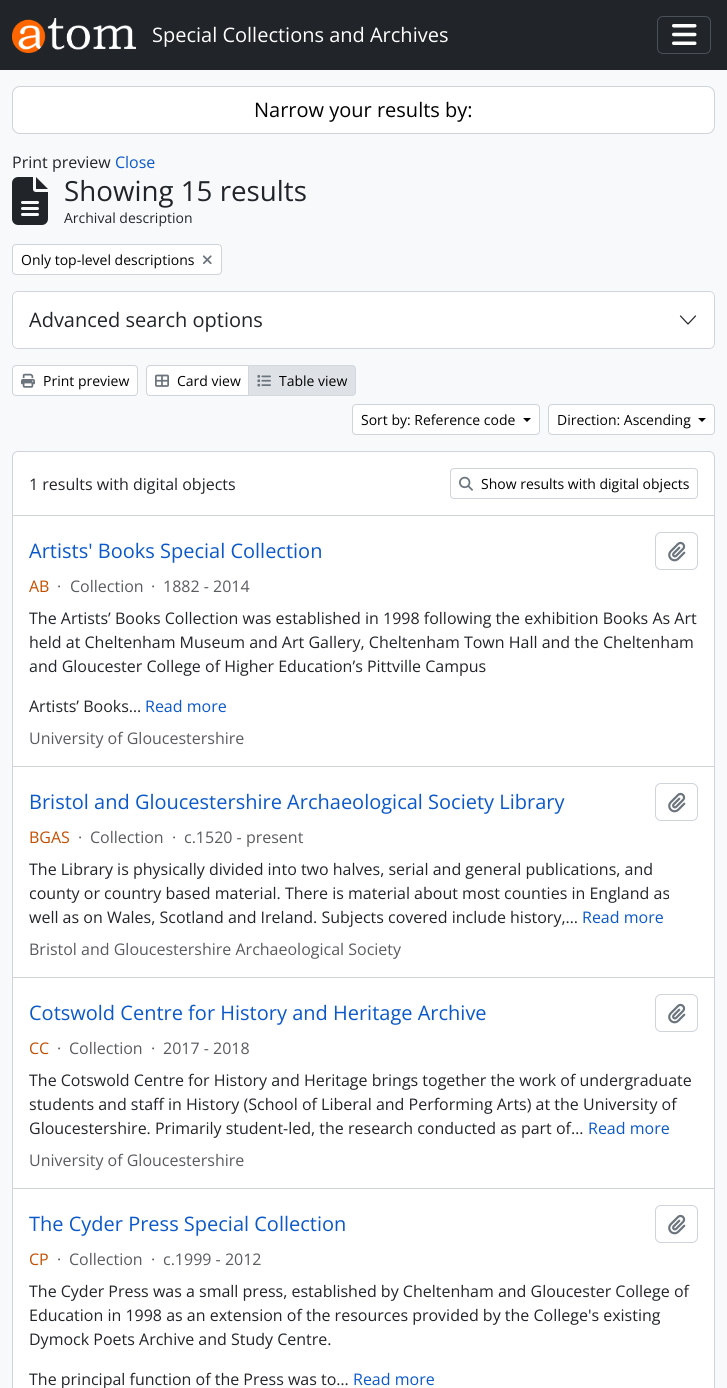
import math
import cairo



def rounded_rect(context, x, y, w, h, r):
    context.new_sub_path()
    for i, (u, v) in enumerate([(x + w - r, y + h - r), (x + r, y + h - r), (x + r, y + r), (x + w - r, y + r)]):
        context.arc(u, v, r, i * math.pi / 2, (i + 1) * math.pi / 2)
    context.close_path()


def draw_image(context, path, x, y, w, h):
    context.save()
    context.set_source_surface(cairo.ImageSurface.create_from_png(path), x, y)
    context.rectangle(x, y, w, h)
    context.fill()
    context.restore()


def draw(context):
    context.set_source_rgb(248 / 255, 249 / 255, 250 / 255)
    context.paint()
    context.set_source_rgb(33 / 255, 37 / 255, 41 / 255)
    context.rectangle(0, 0, 727, 70)
    context.fill()
    draw_image(context, "images/1.png", 12, 18, 124, 35)
    rounded_rect(context, 657.5, 16.5, 53, 37, 5.5)
    context.set_source_rgb(73 / 255, 80 / 255, 87 / 255)
    context.set_line_width(1)
    context.stroke()
    draw_image(context, "images/2.png", 672, 24, 25, 21)
    context.set_source_rgb(1, 1, 1)
    rounded_rect(context, 12.5, 86.5, 702, 47, 7.5)
    context.fill_preserve()
    context.set_source_rgb(206 / 255, 212 / 255, 218 / 255)
    context.stroke()
    draw_image(context, "images/3.png", 12, 177, 36, 48)
    context.set_source_rgb(1, 1, 1)
    rounded_rect(context, 12.5, 244.5, 209, 30, 3.5)
    context.fill_preserve()
    context.set_source_rgb(206 / 255, 212 / 255, 218 / 255)
    context.stroke()
    draw_image(context, "images/4.png", 202, 255, 10, 10)
    rounded_rect(context, 12.5, 291.5, 702, 57, 5.5)
    context.stroke()
    context.set_source_rgb(1, 1, 1)
    rounded_rect(context, 13, 292, 701, 56, 5)
    context.fill()
    context.new_path()
    context.move_to(680.5, 316)
    context.line_to(688, 324)
    context.line_to(695.5, 316)
    context.set_source_rgb(33 / 255, 37 / 255, 41 / 255)
    context.set_line_width(1.2)
    context.set_line_cap(cairo.LineCap.ROUND)
    context.set_line_join(cairo.LineJoin.ROUND)
    context.stroke()
    context.set_source_rgb(1, 1, 1)
    rounded_rect(context, 12.5, 365.5, 125, 30, 3.5)
    context.fill_preserve()
    context.set_source_rgb(206 / 255, 212 / 255, 218 / 255)
    context.set_line_width(1)
    context.set_line_cap(cairo.LineCap.BUTT)
    context.set_line_join(cairo.LineJoin.MITER)
    context.stroke()
    draw_image(context, "images/5.png", 21, 373, 14, 15)
    context.set_source_rgb(1, 1, 1)
    context.new_path()
    context.move_to(150, 365.5)
    context.line_to(248.5, 365.5)
    context.line_to(248.5, 395.5)
    context.line_to(150, 395.5)
    context.curve_to(148, 395.5, 146.5, 394, 146.5, 392)
    context.line_to(146.5, 369)
    context.curve_to(146.5, 367, 148, 365.5, 150, 365.5)
    context.close_path()
    context.fill_preserve()
    context.set_source_rgb(206 / 255, 212 / 255, 218 / 255)
    context.stroke()
    draw_image(context, "images/6.png", 155, 374, 14, 13)
    context.set_source_rgb(222 / 255, 226 / 255, 230 / 255)
    context.new_path()
    context.move_to(248.5, 365.5)
    context.line_to(352, 365.5)
    context.curve_to(354, 365.5, 355.5, 367, 355.5, 369)
    context.line_to(355.5, 392)
    context.curve_to(355.5, 394, 354, 395.5, 352, 395.5)
    context.line_to(248.5, 395.5)
    context.close_path()
    context.fill_preserve()
    context.set_source_rgb(211 / 255, 216 / 255, 222 / 255)
    context.stroke()
    draw_image(context, "images/7.png", 257, 375, 14, 12)
    context.set_source_rgb(1, 1, 1)
    rounded_rect(context, 352.5, 404.5, 187, 30, 3.5)
    context.fill_preserve()
    context.set_source_rgb(206 / 255, 212 / 255, 218 / 255)
    context.stroke()
    context.set_source_rgb(0, 0, 0)
    context.new_path()
    context.move_to(523, 418)
    context.line_to(531, 418)
    context.line_to(527, 422)
    context.close_path()
    context.fill()
    context.set_source_rgb(1, 1, 1)
    rounded_rect(context, 548.5, 404.5, 166, 30, 3.5)
    context.fill_preserve()
    context.set_source_rgb(206 / 255, 212 / 255, 218 / 255)
    context.stroke()
    context.set_source_rgb(0, 0, 0)
    context.new_path()
    context.move_to(698, 418)
    context.line_to(706, 418)
    context.line_to(702, 422)
    context.close_path()
    context.fill()
    context.set_source_rgb(1, 1, 1)
    rounded_rect(context, 12.5, 451.5, 702, 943, 5.5)
    context.fill_preserve()
    context.set_source_rgb(206 / 255, 212 / 255, 218 / 255)
    context.stroke()
    context.rectangle(13, 515, 701, 1)
    context.fill()
    rounded_rect(context, 450.5, 468.5, 247, 30, 3.5)
    context.stroke()
    draw_image(context, "images/8.png", 459, 476, 14, 15)
    context.rectangle(13, 766, 701, 1)
    context.fill()
    rounded_rect(context, 655.5, 532.5, 42, 37, 5.5)
    context.stroke()
    draw_image(context, "images/9.png", 668, 541, 18, 21)
    context.rectangle(13, 977, 701, 1)
    context.fill()
    rounded_rect(context, 655.5, 783.5, 42, 37, 5.5)
    context.stroke()
    draw_image(context, "images/9.png", 668, 792, 18, 21)
    context.rectangle(13, 1188, 701, 1)
    context.fill()
    rounded_rect(context, 655.5, 994.5, 42, 37, 5.5)
    context.stroke()
    draw_image(context, "images/9.png", 668, 1003, 18, 21)
    rounded_rect(context, 655.5, 1205.5, 42, 37, 5.5)
    context.stroke()
    draw_image(context, "images/9.png", 668, 1214, 18, 21)
    context.select_font_face("Open Sans")
    context.set_font_size(20)
    context.set_source_rgb(1, 1, 1)
    context.move_to(152, 42)
    context.show_text("Special Collections and Archives")
    context.set_source_rgb(0, 0, 0)
    context.move_to(254, 117)
    context.show_text("Narrow your results by:")
    context.set_font_size(16)
    context.set_source_rgb(33 / 255, 37 / 255, 41 / 255)
    context.move_to(12, 168)
    context.show_text("Print preview")
    context.set_source_rgb(10 / 255, 88 / 255, 202 / 255)
    context.move_to(115, 168)
    context.show_text("Close")
    context.set_font_size(27.75)
    context.set_source_rgb(33 / 255, 37 / 255, 41 / 255)
    context.move_to(64, 201)
    context.show_text("Showing 15 results")
    context.set_font_size(14)
    context.move_to(64, 223)
    context.show_text("Archival description")
    context.set_source_rgb(0, 0, 0)
    context.move_to(21, 265)
    context.show_text("Only top-level descriptions")
    context.set_font_size(20)
    context.set_source_rgb(33 / 255, 37 / 255, 41 / 255)
    context.move_to(29, 327)
    context.show_text("Advanced search options")
    context.set_font_size(14)
    context.set_source_rgb(0, 0, 0)
    context.move_to(43, 386)
    context.show_text("Print preview")
    context.move_to(177, 386)
    context.show_text("Card view")
    context.move_to(279, 386)
    context.show_text("Table view")
    context.move_to(361, 425)
    context.show_text("Sort by: Reference code")
    context.move_to(557, 425)
    context.show_text("Direction: Ascending")
    context.set_font_size(16)
    context.set_source_rgb(33 / 255, 37 / 255, 41 / 255)
    context.move_to(29, 490)
    context.show_text("1 results with digital objects")
    context.set_font_size(14)
    context.set_source_rgb(0, 0, 0)
    context.move_to(481, 489)
    context.show_text("Show results with digital objects")
    context.set_font_size(20)
    context.set_source_rgb(10 / 255, 88 / 255, 202 / 255)
    context.move_to(29, 558)
    context.show_text("Artists' Books Special Collection")
    context.set_font_size(16)
    context.set_source_rgb(196 / 255, 78 / 255, 0)
    context.move_to(29, 592)
    context.show_text("AB")
    context.set_source_rgb(89 / 255, 92 / 255, 95 / 255)
    context.move_to(57, 592)
    context.show_text("·")
    context.move_to(70, 592)
    context.show_text("Collection")
    context.move_to(151, 592)
    context.show_text("·")
    context.move_to(163, 592)
    context.show_text("1882 - 2014")
    context.set_source_rgb(33 / 255, 37 / 255, 41 / 255)
    context.move_to(29, 624)
    context.show_text("The Artists’ Books Collection was established in 1998 following the exhibition Books As Art")
    context.move_to(29, 648)
    context.show_text("held at Cheltenham Museum and Art Gallery, Cheltenham Town Hall and the Cheltenham")
    context.move_to(29, 672)
    context.show_text("and Gloucester College of Higher Education’s Pittville Campus")
    context.move_to(29, 712)
    context.show_text("Artists’ Books…")
    context.set_source_rgb(10 / 255, 88 / 255, 202 / 255)
    context.move_to(145, 712)
    context.show_text("Read more")
    context.set_source_rgb(89 / 255, 92 / 255, 95 / 255)
    context.move_to(29, 744)
    context.show_text("University of Gloucestershire")
    context.set_font_size(20)
    context.set_source_rgb(10 / 255, 88 / 255, 202 / 255)
    context.move_to(29, 809)
    context.show_text("Bristol and Gloucestershire Archaeological Society Library")
    context.set_font_size(16)
    context.set_source_rgb(196 / 255, 78 / 255, 0)
    context.move_to(29, 843)
    context.show_text("BGAS")
    context.set_source_rgb(89 / 255, 92 / 255, 95 / 255)
    context.move_to(78, 843)
    context.show_text("·")
    context.move_to(90, 843)
    context.show_text("Collection")
    context.move_to(172, 843)
    context.show_text("·")
    context.move_to(184, 843)
    context.show_text("c.1520 - present")
    context.set_source_rgb(33 / 255, 37 / 255, 41 / 255)
    context.move_to(29, 875)
    context.show_text("The Library is physically divided into two halves, serial and general publications, and")
    context.move_to(29, 899)
    context.show_text("county or country based material. There is material about most counties in England as")
    context.move_to(29, 923)
    context.show_text("well as on Wales, Scotland and Ireland. Subjects covered include history,…")
    context.set_source_rgb(10 / 255, 88 / 255, 202 / 255)
    context.move_to(582, 923)
    context.show_text("Read more")
    context.set_source_rgb(89 / 255, 92 / 255, 95 / 255)
    context.move_to(29, 955)
    context.show_text("Bristol and Gloucestershire Archaeological Society")
    context.set_font_size(20)
    context.set_source_rgb(10 / 255, 88 / 255, 202 / 255)
    context.move_to(29, 1020)
    context.show_text("Cotswold Centre for History and Heritage Archive")
    context.set_font_size(16)
    context.set_source_rgb(196 / 255, 78 / 255, 0)
    context.move_to(29, 1054)
    context.show_text("CC")
    context.set_source_rgb(89 / 255, 92 / 255, 95 / 255)
    context.move_to(57, 1054)
    context.show_text("·")
    context.move_to(69, 1054)
    context.show_text("Collection")
    context.move_to(151, 1054)
    context.show_text("·")
    context.move_to(163, 1054)
    context.show_text("2017 - 2018")
    context.set_source_rgb(33 / 255, 37 / 255, 41 / 255)
    context.move_to(29, 1086)
    context.show_text("The Cotswold Centre for History and Heritage brings together the work of undergraduate")
    context.move_to(29, 1110)
    context.show_text("students and staff in History (School of Liberal and Performing Arts) at the University of")
    context.move_to(29, 1134)
    context.show_text("Gloucestershire. Primarily student-led, the research conducted as part of…")
    context.set_source_rgb(10 / 255, 88 / 255, 202 / 255)
    context.move_to(588, 1134)
    context.show_text("Read more")
    context.set_source_rgb(89 / 255, 92 / 255, 95 / 255)
    context.move_to(29, 1166)
    context.show_text("University of Gloucestershire")
    context.set_font_size(20)
    context.set_source_rgb(10 / 255, 88 / 255, 202 / 255)
    context.move_to(29, 1231)
    context.show_text("The Cyder Press Special Collection")
    context.set_font_size(16)
    context.set_source_rgb(196 / 255, 78 / 255, 0)
    context.move_to(29, 1265)
    context.show_text("CP")
    context.set_source_rgb(89 / 255, 92 / 255, 95 / 255)
    context.move_to(57, 1265)
    context.show_text("·")
    context.move_to(69, 1265)
    context.show_text("Collection")
    context.move_to(151, 1265)
    context.show_text("·")
    context.move_to(163, 1265)
    context.show_text("c.1999 - 2012")
    context.set_source_rgb(33 / 255, 37 / 255, 41 / 255)
    context.move_to(29, 1297)
    context.show_text("The Cyder Press was a small press, established by Cheltenham and Gloucester College of")
    context.move_to(29, 1321)
    context.show_text("Education in 1998 as an extension of the resources provided by the College's existing")
    context.move_to(29, 1345)
    context.show_text("Dymock Poets Archive and Study Centre.")
    context.move_to(29, 1385)
    context.show_text("The principal function of the Press was to…")
    context.set_source_rgb(10 / 255, 88 / 255, 202 / 255)
    context.move_to(353, 1385)
    context.show_text("Read more")


surface = cairo.ImageSurface(cairo.Format.RGB24, 727, 1388)
context = cairo.Context(surface)
options = cairo.FontOptions()
options.set_hint_metrics(cairo.HintMetrics.OFF)
options.set_hint_style(cairo.HintStyle.NONE)
context.set_font_options(options)
context.set_miter_limit(4)
draw(context)
surface.write_to_png("out.png")
